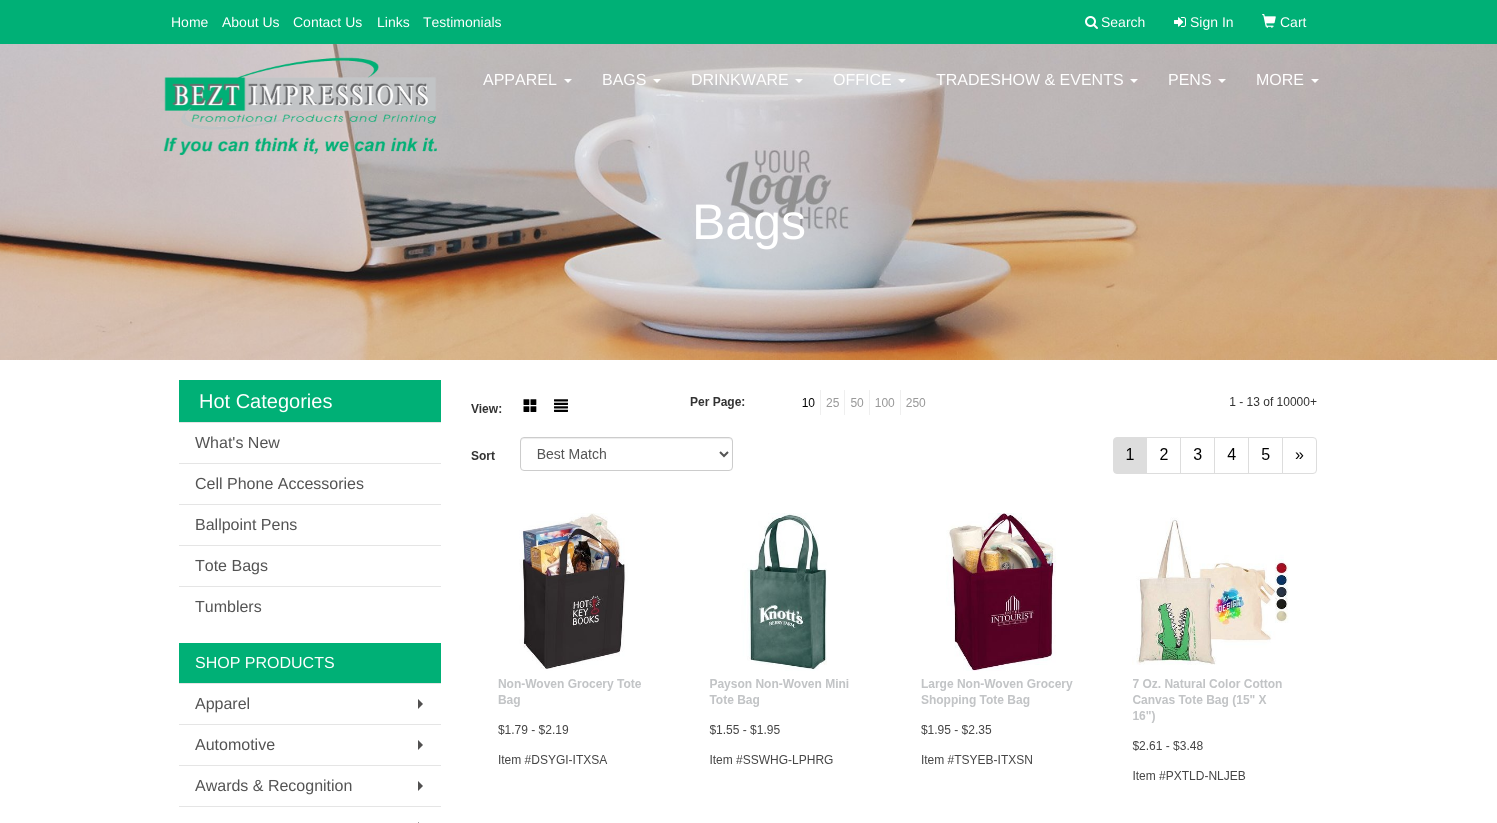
import math
import cairo



def draw_image(context, path, x, y, w, h):
    context.save()
    context.set_source_surface(cairo.ImageSurface.create_from_png(path), x, y)
    context.rectangle(x, y, w, h)
    context.fill()
    context.restore()


def draw(context):
    context.set_source_rgb(1, 1, 1)
    context.paint()
    context.set_source_rgb(0, 176 / 255, 118 / 255)
    context.rectangle(0, 0, 1497, 44)
    context.fill()
    draw_image(context, "images/1.png", 1085, 16, 13, 13)
    draw_image(context, "images/2.png", 1174, 17, 12, 10)
    draw_image(context, "images/3.png", 1262, 14, 14, 14)
    draw_image(context, "images/5.png", 0, 44, 1497, 316)
    draw_image(context, "images/4.png", 163, 57, 274, 98)
    context.set_source_rgb(1, 1, 1)
    context.new_path()
    context.move_to(564, 79)
    context.line_to(572, 79)
    context.line_to(568, 83)
    context.close_path()
    context.fill()
    context.new_path()
    context.move_to(653, 79)
    context.line_to(661, 79)
    context.line_to(657, 83)
    context.close_path()
    context.fill()
    context.new_path()
    context.move_to(795, 79)
    context.line_to(803, 79)
    context.line_to(799, 83)
    context.close_path()
    context.fill()
    context.new_path()
    context.move_to(898, 79)
    context.line_to(906, 79)
    context.line_to(902, 83)
    context.close_path()
    context.fill()
    context.new_path()
    context.move_to(1130, 79)
    context.line_to(1138, 79)
    context.line_to(1134, 83)
    context.close_path()
    context.fill()
    context.new_path()
    context.move_to(1218, 79)
    context.line_to(1226, 79)
    context.line_to(1222, 83)
    context.close_path()
    context.fill()
    context.new_path()
    context.move_to(1311, 79)
    context.line_to(1319, 79)
    context.line_to(1315, 83)
    context.close_path()
    context.fill()
    context.set_source_rgb(0, 176 / 255, 118 / 255)
    context.rectangle(179, 380, 262, 42)
    context.fill()
    context.set_source_rgb(229 / 255, 229 / 255, 229 / 255)
    context.rectangle(179, 422, 262, 1)
    context.fill()
    context.rectangle(179, 463, 262, 1)
    context.fill()
    context.rectangle(179, 504, 262, 1)
    context.fill()
    context.rectangle(179, 545, 262, 1)
    context.fill()
    context.rectangle(179, 586, 262, 1)
    context.fill()
    context.set_source_rgb(0, 176 / 255, 118 / 255)
    context.rectangle(179, 643, 262, 40)
    context.fill()
    context.set_source_rgb(229 / 255, 229 / 255, 229 / 255)
    context.rectangle(179, 683, 262, 1)
    context.fill()
    context.set_source_rgb(81 / 255, 80 / 255, 80 / 255)
    context.new_path()
    context.move_to(418, 709)
    context.line_to(418, 699)
    context.line_to(423, 704)
    context.close_path()
    context.fill()
    context.set_source_rgb(229 / 255, 229 / 255, 229 / 255)
    context.rectangle(179, 724, 262, 1)
    context.fill()
    context.set_source_rgb(81 / 255, 80 / 255, 80 / 255)
    context.new_path()
    context.move_to(418, 750)
    context.line_to(418, 740)
    context.line_to(423, 745)
    context.close_path()
    context.fill()
    context.set_source_rgb(229 / 255, 229 / 255, 229 / 255)
    context.rectangle(179, 765, 262, 1)
    context.fill()
    context.set_source_rgb(81 / 255, 80 / 255, 80 / 255)
    context.new_path()
    context.move_to(418, 791)
    context.line_to(418, 781)
    context.line_to(423, 786)
    context.close_path()
    context.fill()
    context.set_source_rgb(229 / 255, 229 / 255, 229 / 255)
    context.rectangle(179, 806, 262, 1)
    context.fill()
    context.set_source_rgb(81 / 255, 80 / 255, 80 / 255)
    context.new_path()
    context.move_to(418, 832)
    context.line_to(418, 822)
    context.line_to(423, 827)
    context.close_path()
    context.fill()
    draw_image(context, "images/6.png", 471, 390, 846, 390)
    context.select_font_face("Liberation Sans")
    context.set_font_size(14)
    context.set_source_rgb(1, 1, 1)
    context.move_to(171, 27)
    context.show_text("Home")
    context.move_to(222, 27)
    context.show_text("About Us")
    context.move_to(293, 27)
    context.show_text("Contact Us")
    context.move_to(377, 27)
    context.show_text("Links")
    context.move_to(423, 27)
    context.show_text("Testimonials")
    context.move_to(1101, 27)
    context.show_text("Search")
    context.move_to(1190, 27)
    context.show_text("Sign In")
    context.move_to(1280, 27)
    context.show_text("Cart")
    context.set_font_size(16)
    context.move_to(483, 85)
    context.show_text("APPAREL")
    context.move_to(602, 85)
    context.show_text("BAGS")
    context.move_to(691, 85)
    context.show_text("DRINKWARE")
    context.move_to(833, 85)
    context.show_text("OFFICE")
    context.move_to(936, 85)
    context.show_text("TRADESHOW & EVENTS")
    context.move_to(1168, 85)
    context.show_text("PENS")
    context.move_to(1256, 85)
    context.show_text("MORE")
    context.set_font_size(50)
    context.move_to(692, 239)
    context.show_text("Bags")
    context.set_font_size(20)
    context.move_to(199, 408)
    context.show_text("Hot Categories")
    context.set_font_size(16)
    context.set_source_rgb(83 / 255, 83 / 255, 83 / 255)
    context.move_to(195, 448)
    context.show_text("What's New")
    context.move_to(195, 489)
    context.show_text("Cell Phone Accessories")
    context.move_to(195, 530)
    context.show_text("Ballpoint Pens")
    context.move_to(195, 571)
    context.show_text("Tote Bags")
    context.move_to(195, 612)
    context.show_text("Tumblers")
    context.set_source_rgb(1, 1, 1)
    context.move_to(195, 668)
    context.show_text("SHOP PRODUCTS")
    context.set_source_rgb(83 / 255, 83 / 255, 83 / 255)
    context.move_to(195, 709)
    context.show_text("Apparel")
    context.move_to(195, 750)
    context.show_text("Automotive")
    context.move_to(195, 791)
    context.show_text("Awards & Recognition")


surface = cairo.ImageSurface(cairo.Format.RGB24, 1497, 823)
context = cairo.Context(surface)
options = cairo.FontOptions()
options.set_hint_metrics(cairo.HintMetrics.OFF)
options.set_hint_style(cairo.HintStyle.NONE)
context.set_font_options(options)
context.set_miter_limit(4)
draw(context)
surface.write_to_png("out.png")
